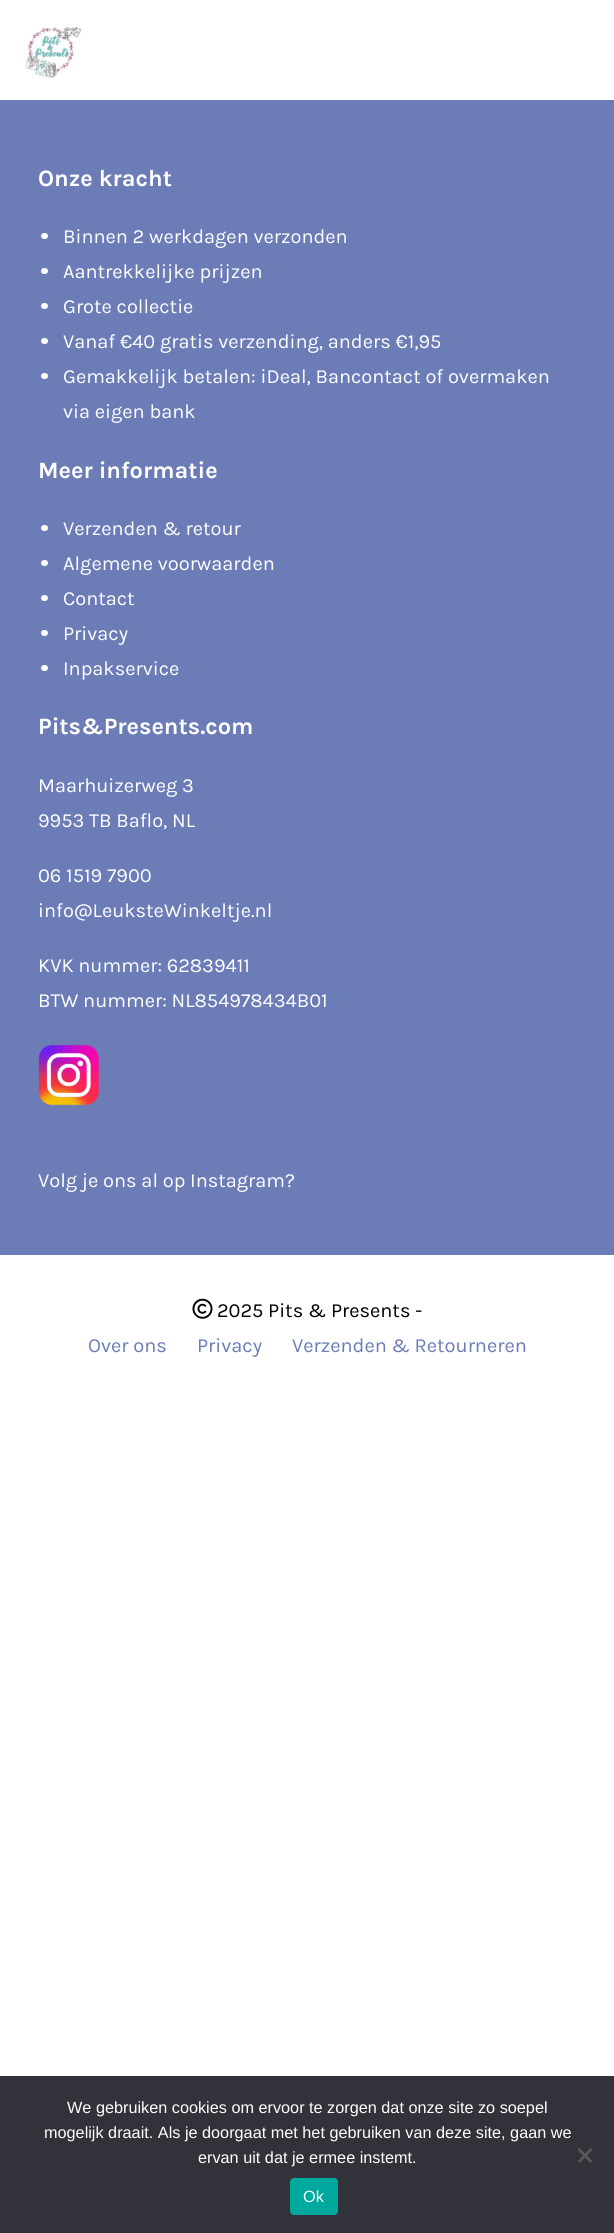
import math
import cairo



def rounded_rect(context, x, y, w, h, r):
    context.new_sub_path()
    for i, (u, v) in enumerate([(x + w - r, y + h - r), (x + r, y + h - r), (x + r, y + r), (x + w - r, y + r)]):
        context.arc(u, v, r, i * math.pi / 2, (i + 1) * math.pi / 2)
    context.close_path()


def draw_image(context, path, x, y, w, h):
    context.save()
    context.set_source_surface(cairo.ImageSurface.create_from_png(path), x, y)
    context.rectangle(x, y, w, h)
    context.fill()
    context.restore()


def draw(context):
    context.set_source_rgb(1, 1, 1)
    context.paint()
    draw_image(context, "images/1.png", 25, 26, 57, 52)
    context.set_source_rgb(108 / 255, 124 / 255, 183 / 255)
    context.rectangle(0, 100, 614, 1155)
    context.fill()
    context.set_source_rgb(1, 1, 1)
    rounded_rect(context, 41, 233, 7, 6, 3)
    context.fill()
    rounded_rect(context, 41, 268, 7, 6, 3)
    context.fill()
    rounded_rect(context, 41, 303, 7, 6, 3)
    context.fill()
    rounded_rect(context, 41, 338, 7, 6, 3)
    context.fill()
    rounded_rect(context, 41, 373, 7, 6, 3)
    context.fill()
    rounded_rect(context, 41, 525, 7, 6, 3)
    context.fill()
    rounded_rect(context, 41, 560, 7, 6, 3)
    context.fill()
    rounded_rect(context, 41, 595, 7, 6, 3)
    context.fill()
    rounded_rect(context, 41, 630, 7, 6, 3)
    context.fill()
    rounded_rect(context, 41, 665, 7, 6, 3)
    context.fill()
    draw_image(context, "images/2.png", 38, 1044, 61, 62)
    draw_image(context, "images/3.png", 192, 1298, 21, 21)
    context.set_source_rgb(50 / 255, 50 / 255, 58 / 255)
    context.rectangle(0, 2076, 614, 157)
    context.fill()
    context.set_source_rgb(89 / 255, 89 / 255, 93 / 255)
    context.new_path()
    context.move_to(590.5, 2148)
    context.line_to(592.5, 2150)
    context.line_to(579.5, 2163)
    context.line_to(577.5, 2161.5)
    context.close_path()
    context.fill()
    context.new_path()
    context.move_to(577.5, 2150)
    context.line_to(579.5, 2148)
    context.line_to(592.5, 2161.5)
    context.line_to(590.5, 2163)
    context.close_path()
    context.fill()
    context.set_source_rgb(0, 169 / 255, 157 / 255)
    rounded_rect(context, 290, 2178, 48, 37, 4)
    context.fill()
    context.select_font_face("Karla", cairo.FontSlant.NORMAL, cairo.FontWeight.BOLD)
    context.set_font_size(23.5)
    context.set_source_rgb(1, 1, 1)
    context.move_to(38, 186)
    context.show_text("Onze kracht")
    context.select_font_face("Karla")
    context.set_font_size(20)
    context.move_to(63, 243)
    context.show_text("Binnen 2 werkdagen verzonden")
    context.move_to(63, 278)
    context.show_text("Aantrekkelijke prijzen")
    context.move_to(63, 313)
    context.show_text("Grote collectie")
    context.move_to(63, 348)
    context.show_text("Vanaf €40 gratis verzending, anders €1,95")
    context.move_to(63, 383)
    context.show_text("Gemakkelijk betalen: iDeal, Bancontact of overmaken")
    context.move_to(63, 418)
    context.show_text("via eigen bank")
    context.select_font_face("Karla", cairo.FontSlant.NORMAL, cairo.FontWeight.BOLD)
    context.set_font_size(23.5)
    context.move_to(38, 478)
    context.show_text("Meer informatie")
    context.select_font_face("Karla")
    context.set_font_size(20)
    context.move_to(63, 535)
    context.show_text("Verzenden & retour")
    context.move_to(63, 570)
    context.show_text("Algemene voorwaarden")
    context.move_to(63, 605)
    context.show_text("Contact")
    context.move_to(63, 640)
    context.show_text("Privacy")
    context.move_to(63, 675)
    context.show_text("Inpakservice")
    context.select_font_face("Karla", cairo.FontSlant.NORMAL, cairo.FontWeight.BOLD)
    context.set_font_size(23.5)
    context.move_to(38, 734)
    context.show_text("Pits&Presents.com")
    context.select_font_face("Karla")
    context.set_font_size(20)
    context.move_to(38, 792)
    context.show_text("Maarhuizerweg 3")
    context.move_to(38, 827)
    context.show_text("9953 TB Baflo, NL")
    context.move_to(38, 882)
    context.show_text("06 1519 7900")
    context.move_to(38, 917)
    context.show_text("info@LeuksteWinkeltje.nl")
    context.move_to(38, 972)
    context.show_text("KVK nummer: 62839411")
    context.move_to(38, 1007)
    context.show_text("BTW nummer: NL854978434B01")
    context.move_to(38, 1187)
    context.show_text("Volg je ons al op Instagram?")
    context.set_source_rgb(0, 0, 0)
    context.move_to(217, 1317)
    context.show_text("2025 Pits & Presents -")
    context.set_source_rgb(108 / 255, 124 / 255, 183 / 255)
    context.move_to(88, 1352)
    context.show_text("Over ons")
    context.move_to(197, 1352)
    context.show_text("Privacy")
    context.move_to(292, 1352)
    context.show_text("Verzenden & Retourneren")
    context.select_font_face("Liberation Sans")
    context.set_font_size(16.25)
    context.set_source_rgb(1, 1, 1)
    context.move_to(67, 2113)
    context.show_text("We gebruiken cookies om ervoor te zorgen dat onze site zo soepel")
    context.move_to(44, 2138)
    context.show_text("mogelijk draait. Als je doorgaat met het gebruiken van deze site, gaan we")
    context.move_to(198, 2163)
    context.show_text("ervan uit dat je ermee instemt.")
    context.move_to(303, 2202)
    context.show_text("Ok")


surface = cairo.ImageSurface(cairo.Format.RGB24, 614, 2233)
context = cairo.Context(surface)
options = cairo.FontOptions()
options.set_hint_metrics(cairo.HintMetrics.OFF)
options.set_hint_style(cairo.HintStyle.NONE)
context.set_font_options(options)
context.set_miter_limit(4)
draw(context)
surface.write_to_png("out.png")
